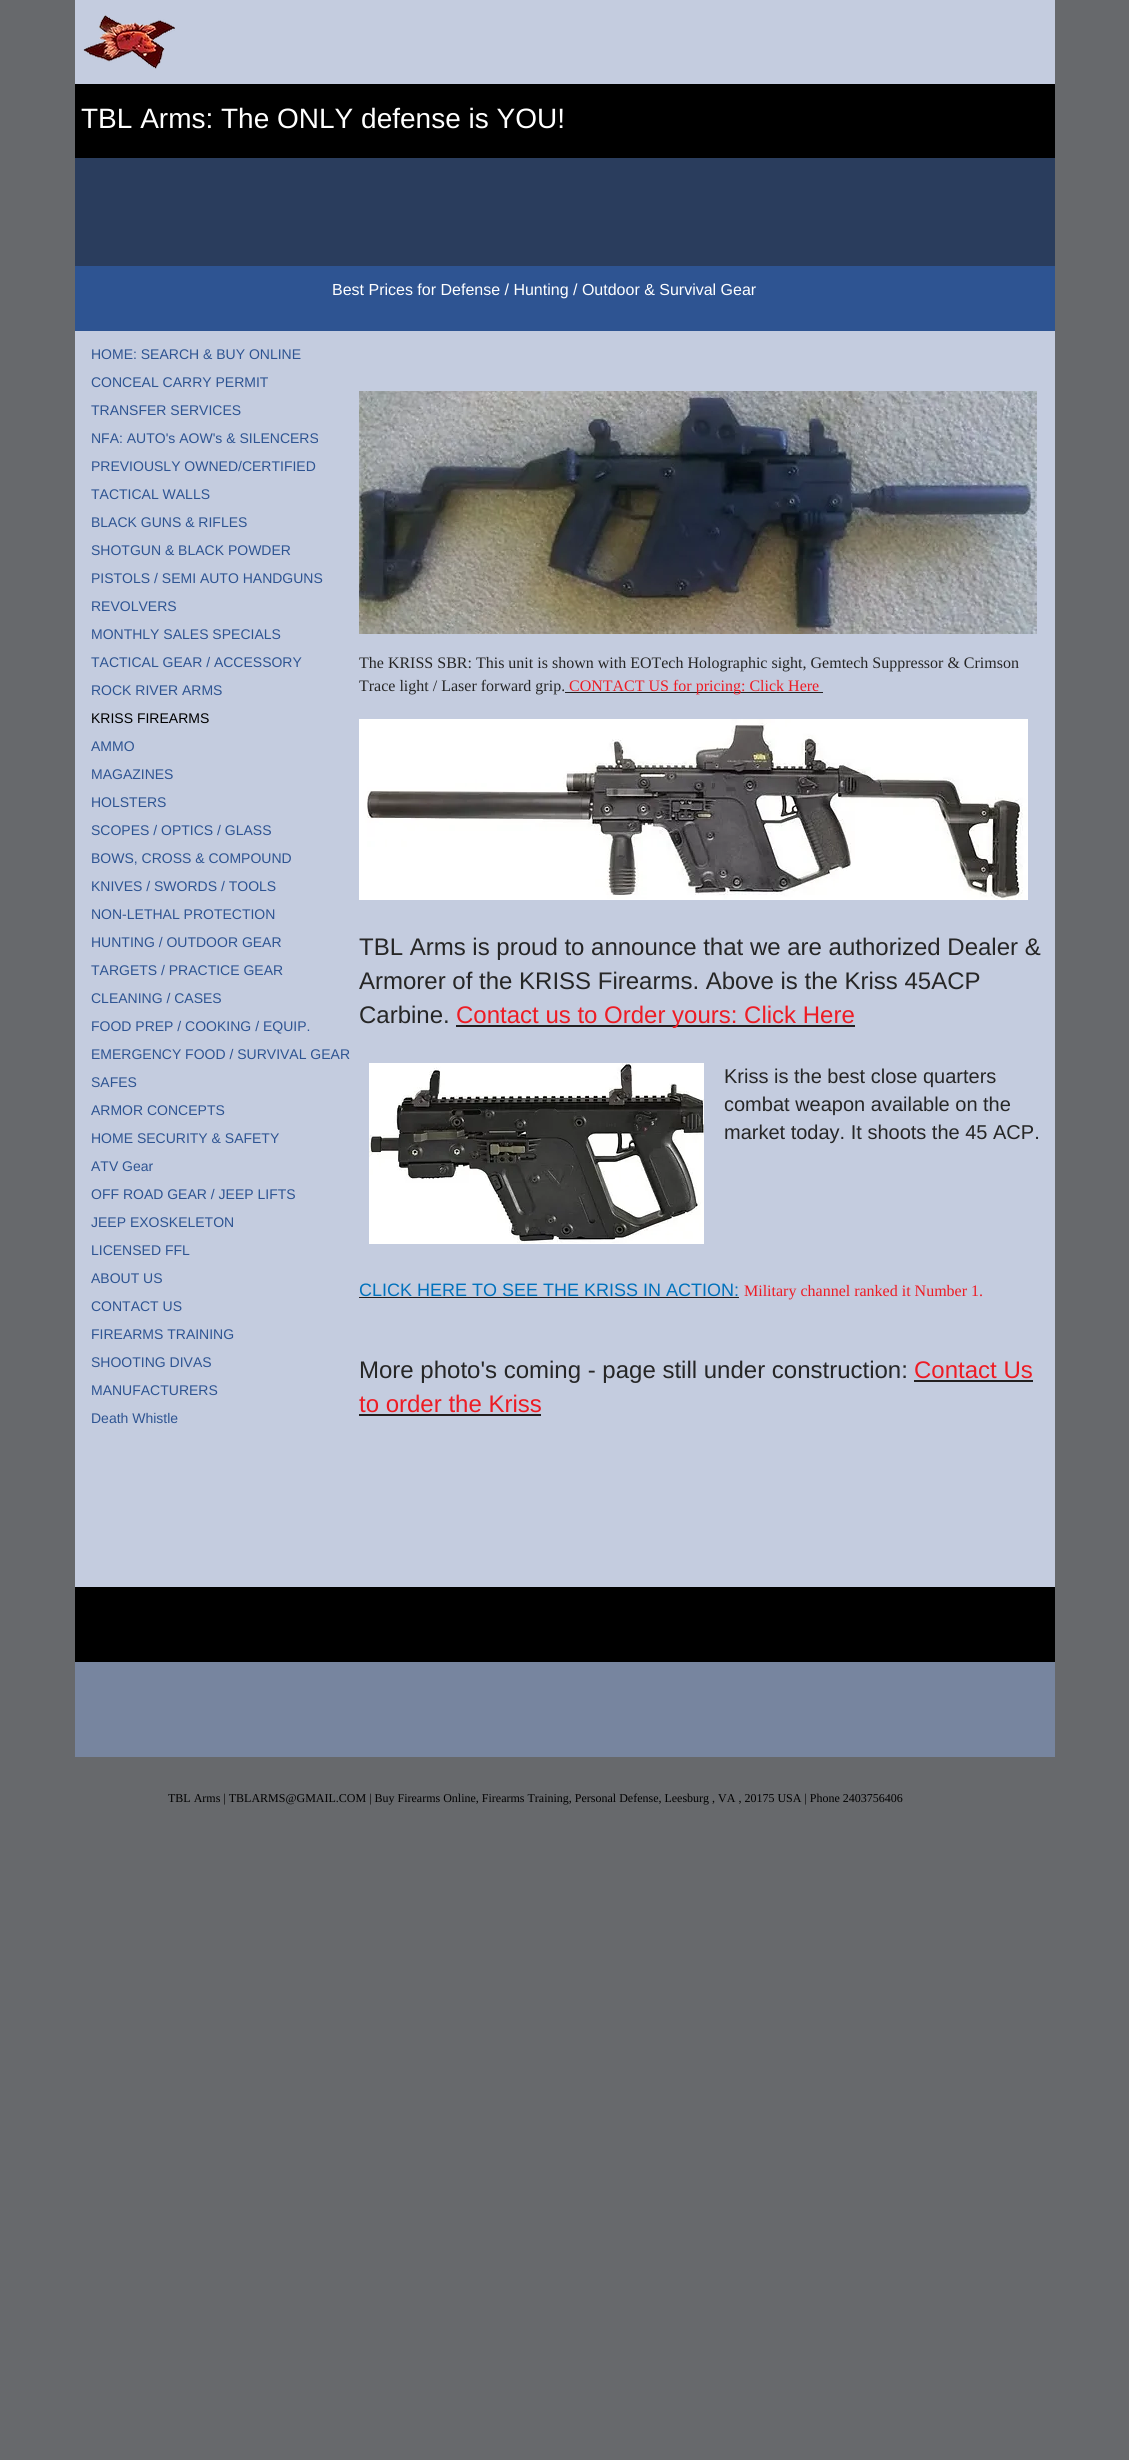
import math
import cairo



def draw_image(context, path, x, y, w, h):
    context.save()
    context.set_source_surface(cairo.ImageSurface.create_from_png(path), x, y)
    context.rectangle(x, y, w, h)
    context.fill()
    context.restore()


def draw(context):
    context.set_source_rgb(103 / 255, 105 / 255, 108 / 255)
    context.paint()
    context.set_source_rgb(196 / 255, 204 / 255, 223 / 255)
    context.rectangle(75, 0, 980, 84)
    context.fill()
    draw_image(context, "images/1.png", 83, 15, 92, 54)
    context.set_source_rgb(0, 0, 0)
    context.rectangle(75, 84, 980, 74)
    context.fill()
    context.set_source_rgb(42 / 255, 61 / 255, 93 / 255)
    context.rectangle(75, 158, 980, 108)
    context.fill()
    context.set_source_rgb(46 / 255, 84 / 255, 146 / 255)
    context.rectangle(75, 266, 980, 65)
    context.fill()
    context.set_source_rgb(196 / 255, 204 / 255, 223 / 255)
    context.rectangle(75, 331, 980, 1256)
    context.fill()
    draw_image(context, "images/2.png", 359, 391, 678, 243)
    context.set_source_rgb(35 / 255, 31 / 255, 32 / 255)
    context.rectangle(565, 692, 258, 1)
    context.fill()
    draw_image(context, "images/3.png", 359, 719, 669, 181)
    context.rectangle(456, 1025, 399, 2)
    context.fill()
    draw_image(context, "images/4.png", 369, 1063, 335, 181)
    context.rectangle(359, 1297, 380, 1)
    context.fill()
    context.rectangle(914, 1380, 119, 2)
    context.fill()
    context.rectangle(359, 1414, 182, 2)
    context.fill()
    context.set_source_rgb(0, 0, 0)
    context.rectangle(75, 1587, 980, 75)
    context.fill()
    context.set_source_rgb(119 / 255, 133 / 255, 159 / 255)
    context.rectangle(75, 1662, 980, 95)
    context.fill()
    context.select_font_face("Liberation Sans")
    context.set_font_size(28)
    context.set_source_rgb(1, 1, 1)
    context.move_to(81, 128)
    context.show_text("TBL Arms: The ONLY defense is YOU!")
    context.set_font_size(16)
    context.move_to(332, 295)
    context.show_text("Best Prices for Defense / Hunting / Outdoor & Survival Gear")
    context.set_font_size(14)
    context.set_source_rgb(46 / 255, 84 / 255, 146 / 255)
    context.move_to(91, 359)
    context.show_text("HOME: SEARCH & BUY ONLINE")
    context.move_to(91, 387)
    context.show_text("CONCEAL CARRY PERMIT")
    context.move_to(91, 415)
    context.show_text("TRANSFER SERVICES")
    context.move_to(91, 443)
    context.show_text("NFA: AUTO's AOW's & SILENCERS")
    context.move_to(91, 471)
    context.show_text("PREVIOUSLY OWNED/CERTIFIED")
    context.move_to(91, 499)
    context.show_text("TACTICAL WALLS")
    context.move_to(91, 527)
    context.show_text("BLACK GUNS & RIFLES")
    context.move_to(91, 555)
    context.show_text("SHOTGUN & BLACK POWDER")
    context.move_to(91, 583)
    context.show_text("PISTOLS / SEMI AUTO HANDGUNS")
    context.move_to(91, 611)
    context.show_text("REVOLVERS")
    context.move_to(91, 639)
    context.show_text("MONTHLY SALES SPECIALS")
    context.move_to(91, 667)
    context.show_text("TACTICAL GEAR / ACCESSORY")
    context.move_to(91, 695)
    context.show_text("ROCK RIVER ARMS")
    context.set_source_rgb(0, 0, 0)
    context.move_to(91, 723)
    context.show_text("KRISS FIREARMS")
    context.set_source_rgb(46 / 255, 84 / 255, 146 / 255)
    context.move_to(91, 751)
    context.show_text("AMMO")
    context.move_to(91, 779)
    context.show_text("MAGAZINES")
    context.move_to(91, 807)
    context.show_text("HOLSTERS")
    context.move_to(91, 835)
    context.show_text("SCOPES / OPTICS / GLASS")
    context.move_to(91, 863)
    context.show_text("BOWS, CROSS & COMPOUND")
    context.move_to(91, 891)
    context.show_text("KNIVES / SWORDS / TOOLS")
    context.move_to(91, 919)
    context.show_text("NON-LETHAL PROTECTION")
    context.move_to(91, 947)
    context.show_text("HUNTING / OUTDOOR GEAR")
    context.move_to(91, 975)
    context.show_text("TARGETS / PRACTICE GEAR")
    context.move_to(91, 1003)
    context.show_text("CLEANING / CASES")
    context.move_to(91, 1031)
    context.show_text("FOOD PREP / COOKING / EQUIP.")
    context.move_to(91, 1059)
    context.show_text("EMERGENCY FOOD / SURVIVAL GEAR")
    context.move_to(91, 1087)
    context.show_text("SAFES")
    context.move_to(91, 1115)
    context.show_text("ARMOR CONCEPTS")
    context.move_to(91, 1143)
    context.show_text("HOME SECURITY & SAFETY")
    context.move_to(91, 1171)
    context.show_text("ATV Gear")
    context.move_to(91, 1199)
    context.show_text("OFF ROAD GEAR / JEEP LIFTS")
    context.move_to(91, 1227)
    context.show_text("JEEP EXOSKELETON")
    context.move_to(91, 1255)
    context.show_text("LICENSED FFL")
    context.move_to(91, 1283)
    context.show_text("ABOUT US")
    context.move_to(91, 1311)
    context.show_text("CONTACT US")
    context.move_to(91, 1339)
    context.show_text("FIREARMS TRAINING")
    context.move_to(91, 1367)
    context.show_text("SHOOTING DIVAS")
    context.move_to(91, 1395)
    context.show_text("MANUFACTURERS")
    context.move_to(91, 1423)
    context.show_text("Death Whistle")
    context.select_font_face("Liberation Serif")
    context.set_font_size(16)
    context.set_source_rgb(38 / 255, 38 / 255, 38 / 255)
    context.move_to(359, 668)
    context.show_text("The KRISS SBR: This unit is shown with EOTech Holographic sight, Gemtech Suppressor & Crimson")
    context.move_to(359, 691)
    context.show_text("Trace light / Laser forward grip.")
    context.set_source_rgb(237 / 255, 28 / 255, 36 / 255)
    context.move_to(569, 691)
    context.show_text("CONTACT US for pricing: Click Here")
    context.select_font_face("Liberation Sans")
    context.set_font_size(24)
    context.set_source_rgb(38 / 255, 38 / 255, 38 / 255)
    context.move_to(359, 955)
    context.show_text("TBL Arms is proud to announce that we are authorized Dealer &")
    context.move_to(359, 989)
    context.show_text("Armorer of the KRISS Firearms. Above is the Kriss 45ACP")
    context.move_to(359, 1023)
    context.show_text("Carbine.")
    context.set_source_rgb(237 / 255, 28 / 255, 36 / 255)
    context.move_to(456, 1023)
    context.show_text("Contact us to Order yours: Click Here")
    context.set_font_size(20)
    context.set_source_rgb(38 / 255, 38 / 255, 38 / 255)
    context.move_to(724, 1083)
    context.show_text("Kriss is the best close quarters")
    context.move_to(724, 1111)
    context.show_text("combat weapon available on the")
    context.move_to(724, 1139)
    context.show_text("market today. It shoots the 45 ACP.")
    context.set_font_size(18)
    context.set_source_rgb(0, 113 / 255, 188 / 255)
    context.move_to(359, 1296)
    context.show_text("CLICK HERE TO SEE THE KRISS IN ACTION:")
    context.select_font_face("Liberation Serif")
    context.set_font_size(16)
    context.set_source_rgb(237 / 255, 28 / 255, 36 / 255)
    context.move_to(744, 1296)
    context.show_text("Military channel ranked it Number 1.")
    context.select_font_face("Liberation Sans")
    context.set_font_size(24)
    context.set_source_rgb(38 / 255, 38 / 255, 38 / 255)
    context.move_to(359, 1378)
    context.show_text("More photo's coming - page still under construction:")
    context.set_source_rgb(237 / 255, 28 / 255, 36 / 255)
    context.move_to(914, 1378)
    context.show_text("Contact Us")
    context.move_to(359, 1412)
    context.show_text("to order the Kriss")
    context.select_font_face("Liberation Serif")
    context.set_font_size(12)
    context.set_source_rgb(0, 0, 0)
    context.move_to(168, 1802)
    context.show_text("TBL Arms | TBLARMS@GMAIL.COM | Buy Firearms Online, Firearms Training, Personal Defense, Leesburg , VA , 20175 USA | Phone 2403756406")


surface = cairo.ImageSurface(cairo.Format.RGB24, 1129, 2460)
context = cairo.Context(surface)
options = cairo.FontOptions()
options.set_hint_metrics(cairo.HintMetrics.OFF)
options.set_hint_style(cairo.HintStyle.NONE)
context.set_font_options(options)
context.set_miter_limit(4)
draw(context)
surface.write_to_png("out.png")
